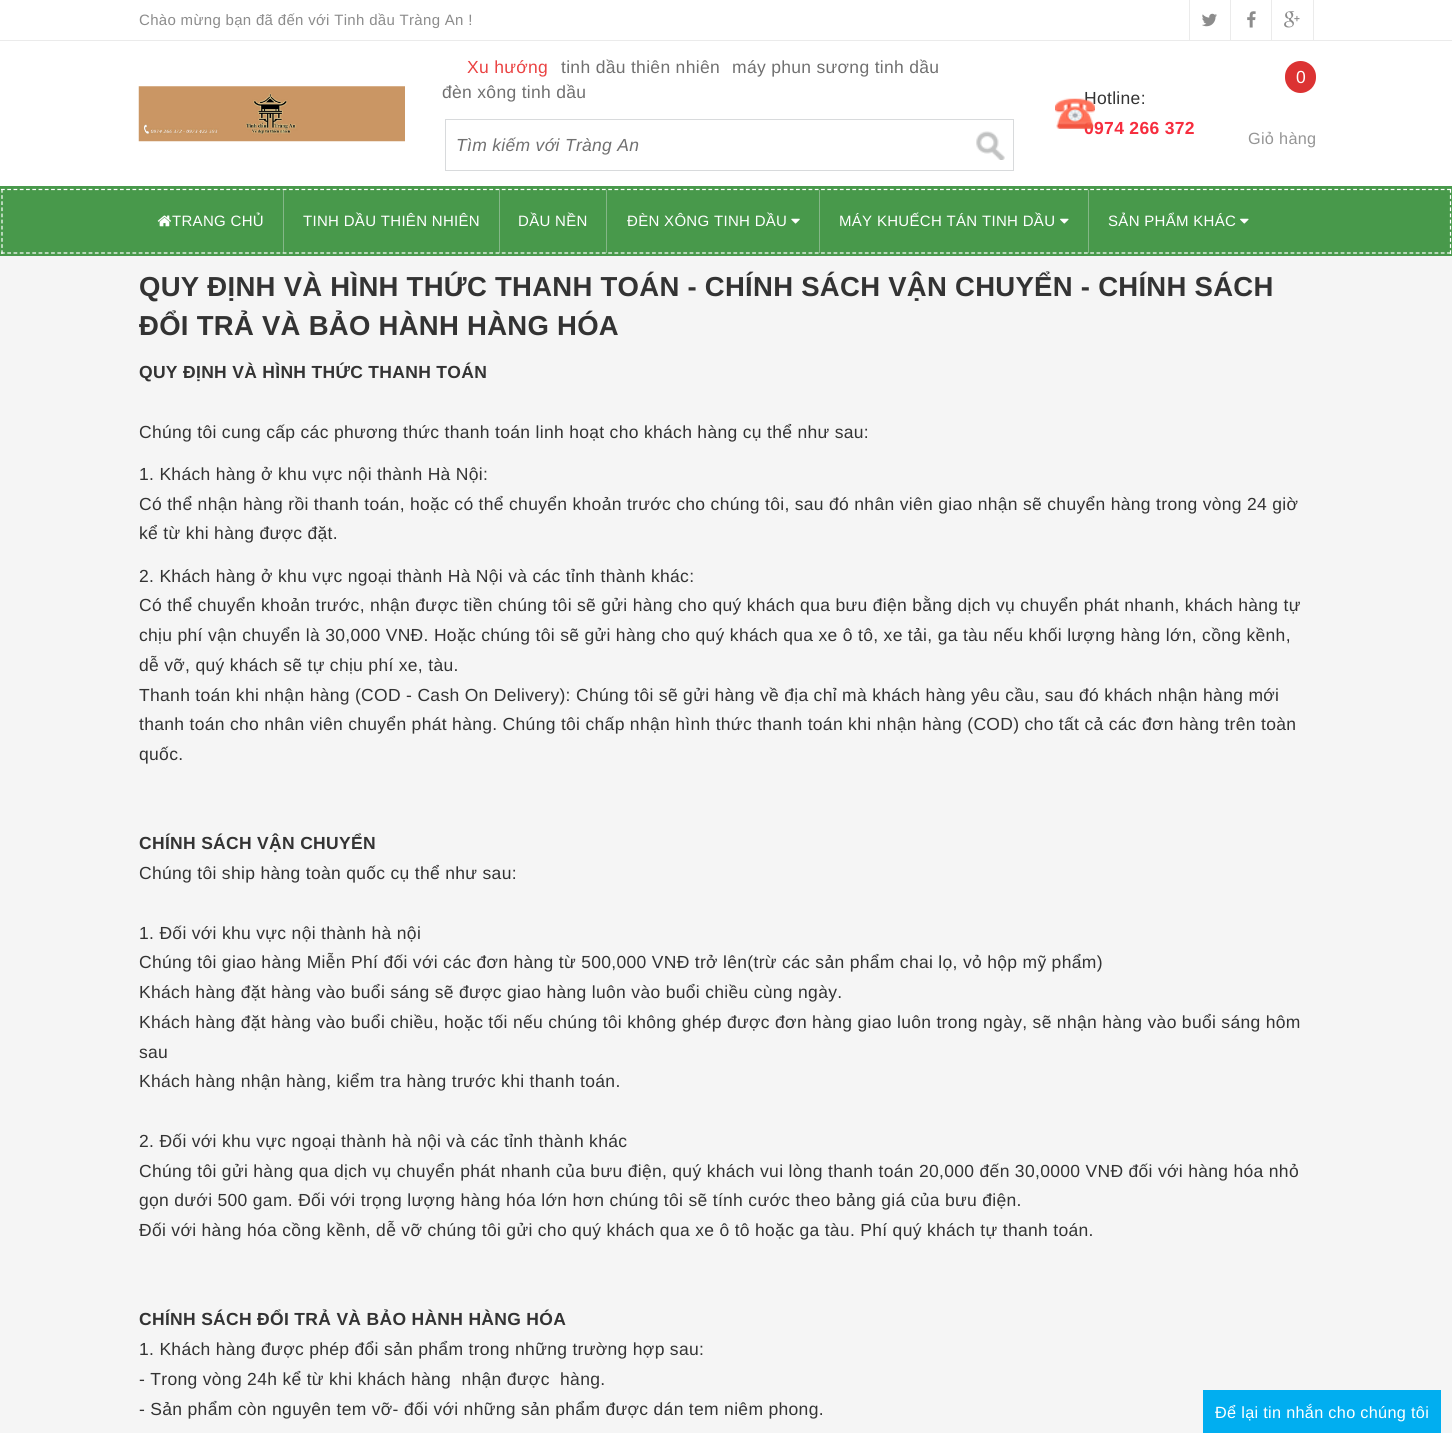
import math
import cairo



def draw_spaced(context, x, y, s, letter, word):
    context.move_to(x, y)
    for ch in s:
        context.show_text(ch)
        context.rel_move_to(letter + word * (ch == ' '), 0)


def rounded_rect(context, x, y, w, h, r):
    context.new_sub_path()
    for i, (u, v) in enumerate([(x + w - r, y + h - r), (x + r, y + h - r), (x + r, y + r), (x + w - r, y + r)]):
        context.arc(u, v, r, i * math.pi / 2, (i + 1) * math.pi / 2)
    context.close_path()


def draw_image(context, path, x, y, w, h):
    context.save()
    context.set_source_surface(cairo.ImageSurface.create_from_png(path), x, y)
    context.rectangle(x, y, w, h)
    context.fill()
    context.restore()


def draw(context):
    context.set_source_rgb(245 / 255, 245 / 255, 245 / 255)
    context.paint()
    context.set_source_rgb(1, 1, 1)
    context.rectangle(0, 0, 1452, 40)
    context.fill()
    context.set_source_rgb(235 / 255, 235 / 255, 235 / 255)
    context.rectangle(0, 40, 1452, 1)
    context.fill()
    context.rectangle(1189, 0, 1, 40)
    context.fill()
    draw_image(context, "images/1.png", 1202, 13, 15, 14)
    context.rectangle(1230, 0, 1, 40)
    context.fill()
    draw_image(context, "images/2.png", 1247, 11, 9, 17)
    context.rectangle(1313, 0, 1, 40)
    context.fill()
    context.rectangle(1271, 0, 1, 40)
    context.fill()
    draw_image(context, "images/3.png", 1284, 11, 16, 17)
    context.set_source_rgb(1, 1, 1)
    context.rectangle(0, 41, 1452, 145)
    context.fill()
    draw_image(context, "images/4.png", 138, 86, 267, 56)
    context.rectangle(445.5, 119.5, 568, 51)
    context.set_source_rgb(216 / 255, 218 / 255, 220 / 255)
    context.set_line_width(1)
    context.stroke()
    draw_image(context, "images/5.png", 976, 131, 29, 29)
    context.set_source_rgb(220 / 255, 51 / 255, 51 / 255)
    rounded_rect(context, 1285, 61, 31, 32, 15.5)
    context.fill()
    context.set_source_rgb(72 / 255, 153 / 255, 75 / 255)
    context.rectangle(0, 186, 1452, 70)
    context.fill()
    context.new_path()
    context.move_to(1, 189.5)
    context.line_to(1451, 189.5)
    context.set_source_rgb(1, 1, 1)
    context.set_line_width(1.2)
    context.set_dash([3.75, 2.51])
    context.stroke()
    context.new_path()
    context.move_to(1450.5, 189)
    context.line_to(1450.5, 254)
    context.set_dash([3.75, 2.38])
    context.stroke()
    context.new_path()
    context.move_to(1, 253)
    context.line_to(1451, 253)
    context.set_dash([3.75, 2.51])
    context.stroke()
    context.new_path()
    context.move_to(2, 189)
    context.line_to(2, 254)
    context.set_dash([3.75, 2.38])
    context.stroke()
    draw_image(context, "images/7.png", 157, 215, 15, 12)
    context.set_source_rgba(226 / 255, 228 / 255, 230 / 255, 0.39)
    context.rectangle(283, 190, 1, 63)
    context.fill()
    context.rectangle(499, 190, 1, 63)
    context.fill()
    context.set_source_rgb(132 / 255, 182 / 255, 135 / 255)
    context.rectangle(606, 190, 1, 63)
    context.fill()
    draw_image(context, "images/8.png", 791, 218, 9, 6)
    context.rectangle(819, 190, 1, 63)
    context.fill()
    draw_image(context, "images/9.png", 1060, 218, 9, 6)
    context.rectangle(1088, 190, 1, 63)
    context.fill()
    draw_image(context, "images/9.png", 1240, 218, 9, 6)
    context.set_source_rgb(1 / 255, 174 / 255, 240 / 255)
    context.rectangle(1203, 1390, 238, 43)
    context.fill()
    context.select_font_face("Liberation Sans")
    context.set_font_size(15)
    context.set_source_rgb(140 / 255, 140 / 255, 140 / 255)
    draw_spaced(context, 139, 25, "Chào mừng bạn đã đến với Tinh dầu Tràng An !", 0.31, 0)
    context.set_font_size(17.5)
    context.set_source_rgb(234 / 255, 66 / 255, 66 / 255)
    draw_spaced(context, 467, 73, "Xu hướng", 0.31, 0)
    context.set_source_rgb(112 / 255, 112 / 255, 112 / 255)
    draw_spaced(context, 561, 73, "tinh dầu thiên nhiên", 0.31, 0)
    draw_spaced(context, 732, 73, "máy phun sương tinh dầu", 0.31, 0)
    draw_spaced(context, 442, 98, "đèn xông tinh dầu", 0.31, 0)
    context.select_font_face("Liberation Sans", cairo.FontSlant.ITALIC)
    draw_spaced(context, 456, 151, "Tìm kiếm với Tràng An", 0.31, 0)
    context.select_font_face("Liberation Sans")
    context.set_source_rgb(51 / 255, 51 / 255, 51 / 255)
    draw_spaced(context, 1084, 104, "Hotline:", 0.31, 0)
    context.select_font_face("Liberation Sans", cairo.FontSlant.NORMAL, cairo.FontWeight.BOLD)
    context.set_source_rgb(246 / 255, 45 / 255, 62 / 255)
    draw_spaced(context, 1084, 134, "0974 266 372", 0.31, 0)
    draw_image(context, "images/6.png", 1055, 98, 40, 31)
    context.select_font_face("Liberation Sans")
    context.set_source_rgb(1, 1, 1)
    draw_spaced(context, 1296, 83, "0", 0.31, 0)
    context.set_font_size(16.25)
    context.set_source_rgb(149 / 255, 149 / 255, 149 / 255)
    draw_spaced(context, 1248, 144, "Giỏ hàng", 0.31, 0)
    context.set_font_size(15)
    context.set_source_rgb(1, 1, 1)
    draw_spaced(context, 172, 226, "TRANG CHỦ", 0.31, 0)
    draw_spaced(context, 303, 226, "TINH DẦU THIÊN NHIÊN", 0.31, 0)
    draw_spaced(context, 518, 226, "DẦU NỀN", 0.31, 0)
    draw_spaced(context, 627, 226, "ĐÈN XÔNG TINH DẦU", 0.31, 0)
    draw_spaced(context, 839, 226, "MÁY KHUẾCH TÁN TINH DẦU", 0.31, 0)
    draw_spaced(context, 1108, 226, "SẢN PHẨM KHÁC", 0.31, 0)
    context.select_font_face("Liberation Sans", cairo.FontSlant.NORMAL, cairo.FontWeight.BOLD)
    context.set_font_size(27.5)
    context.set_source_rgb(51 / 255, 51 / 255, 51 / 255)
    draw_spaced(context, 139, 296, "QUY ĐỊNH VÀ HÌNH THỨC THANH TOÁN - CHÍNH SÁCH VẬN CHUYỂN - CHÍNH SÁCH", 0.28, 0)
    draw_spaced(context, 139, 335, "ĐỔI TRẢ VÀ BẢO HÀNH HÀNG HÓA", 0.28, 0)
    context.set_font_size(17.5)
    draw_spaced(context, 139, 378, "QUY ĐỊNH VÀ HÌNH THỨC THANH TOÁN", 0.31, 0)
    context.select_font_face("Liberation Sans")
    draw_spaced(context, 139, 438, "Chúng tôi cung cấp các phương thức thanh toán linh hoạt cho khách hàng cụ thể như sau:", 0.31, 0)
    draw_spaced(context, 139, 480, "1. Khách hàng ở khu vực nội thành Hà Nội:", 0.31, 0)
    draw_spaced(context, 139, 510, "Có thể nhận hàng rồi thanh toán, hoặc có thể chuyển khoản trước cho chúng tôi, sau đó nhân viên giao nhận sẽ chuyển hàng trong vòng 24 giờ", 0.31, 0)
    draw_spaced(context, 139, 539, "kể từ khi hàng được đặt.", 0.31, 0)
    draw_spaced(context, 139, 582, "2. Khách hàng ở khu vực ngoại thành Hà Nội và các tỉnh thành khác:", 0.31, 0)
    draw_spaced(context, 139, 611, "Có thể chuyển khoản trước, nhận được tiền chúng tôi sẽ gửi hàng cho quý khách qua bưu điện bằng dịch vụ chuyển phát nhanh, khách hàng tự", 0.31, 0)
    draw_spaced(context, 139, 641, "chịu phí vận chuyển là 30,000 VNĐ. Hoặc chúng tôi sẽ gửi hàng cho quý khách qua xe ô tô, xe tải, ga tàu nếu khối lượng hàng lớn, cồng kềnh,", 0.31, 0)
    draw_spaced(context, 139, 671, "dễ vỡ, quý khách sẽ tự chịu phí xe, tàu.", 0.31, 0)
    draw_spaced(context, 139, 701, "Thanh toán khi nhận hàng (COD - Cash On Delivery): Chúng tôi sẽ gửi hàng về địa chỉ mà khách hàng yêu cầu, sau đó khách nhận hàng mới", 0.31, 0)
    draw_spaced(context, 139, 730, "thanh toán cho nhân viên chuyển phát hàng. Chúng tôi chấp nhận hình thức thanh toán khi nhận hàng (COD) cho tất cả các đơn hàng trên toàn", 0.31, 0)
    draw_spaced(context, 139, 760, "quốc.", 0.31, 0)
    context.select_font_face("Liberation Sans", cairo.FontSlant.NORMAL, cairo.FontWeight.BOLD)
    draw_spaced(context, 139, 849, "CHÍNH SÁCH VẬN CHUYỂN", 0.31, 0)
    context.select_font_face("Liberation Sans")
    draw_spaced(context, 139, 879, "Chúng tôi ship hàng toàn quốc cụ thể như sau:", 0.31, 0)
    draw_spaced(context, 139, 939, "1. Đối với khu vực nội thành hà nội", 0.31, 0)
    draw_spaced(context, 139, 968, "Chúng tôi giao hàng Miễn Phí đối với các đơn hàng từ 500,000 VNĐ trở lên(trừ các sản phẩm chai lọ, vỏ hộp mỹ phẩm)", 0.31, 0)
    draw_spaced(context, 139, 998, "Khách hàng đặt hàng vào buổi sáng sẽ được giao hàng luôn vào buổi chiều cùng ngày.", 0.31, 0)
    draw_spaced(context, 139, 1028, "Khách hàng đặt hàng vào buổi chiều, hoặc tối nếu chúng tôi không ghép được đơn hàng giao luôn trong ngày, sẽ nhận hàng vào buổi sáng hôm", 0.31, 0)
    draw_spaced(context, 139, 1058, "sau", 0.31, 0)
    draw_spaced(context, 139, 1087, "Khách hàng nhận hàng, kiểm tra hàng trước khi thanh toán.", 0.31, 0)
    draw_spaced(context, 139, 1147, "2. Đối với khu vực ngoại thành hà nội và các tỉnh thành khác", 0.31, 0)
    draw_spaced(context, 139, 1177, "Chúng tôi gửi hàng qua dịch vụ chuyển phát nhanh của bưu điện, quý khách vui lòng thanh toán 20,000 đến 30,0000 VNĐ đối với hàng hóa nhỏ", 0.31, 0)
    draw_spaced(context, 139, 1206, "gọn dưới 500 gam. Đối với trọng lượng hàng hóa lớn hơn chúng tôi sẽ tính cước theo bảng giá của bưu điện.", 0.31, 0)
    draw_spaced(context, 139, 1236, "Đối với hàng hóa cồng kềnh, dễ vỡ chúng tôi gửi cho quý khách qua xe ô tô hoặc ga tàu. Phí quý khách tự thanh toán.", 0.31, 0)
    context.select_font_face("Liberation Sans", cairo.FontSlant.NORMAL, cairo.FontWeight.BOLD)
    draw_spaced(context, 139, 1325, "CHÍNH SÁCH ĐỔI TRẢ VÀ BẢO HÀNH HÀNG HÓA", 0.31, 0)
    context.select_font_face("Liberation Sans")
    draw_spaced(context, 139, 1355, "1. Khách hàng được phép đổi sản phẩm trong những trường hợp sau:", 0.31, 0)
    draw_spaced(context, 139, 1385, "- Trong vòng 24h kể từ khi khách hàng  nhận được  hàng.", 0.31, 0)
    draw_spaced(context, 139, 1415, "- Sản phẩm còn nguyên tem vỡ- đối với những sản phẩm được dán tem niêm phong.", 0.31, 0)
    context.set_font_size(16.25)
    context.set_source_rgb(1, 1, 1)
    draw_spaced(context, 1215, 1418, "Để lại tin nhắn cho chúng tôi", 0.31, 0)


surface = cairo.ImageSurface(cairo.Format.RGB24, 1452, 1433)
context = cairo.Context(surface)
options = cairo.FontOptions()
options.set_hint_metrics(cairo.HintMetrics.OFF)
options.set_hint_style(cairo.HintStyle.NONE)
context.set_font_options(options)
context.set_miter_limit(4)
draw(context)
surface.write_to_png("out.png")
